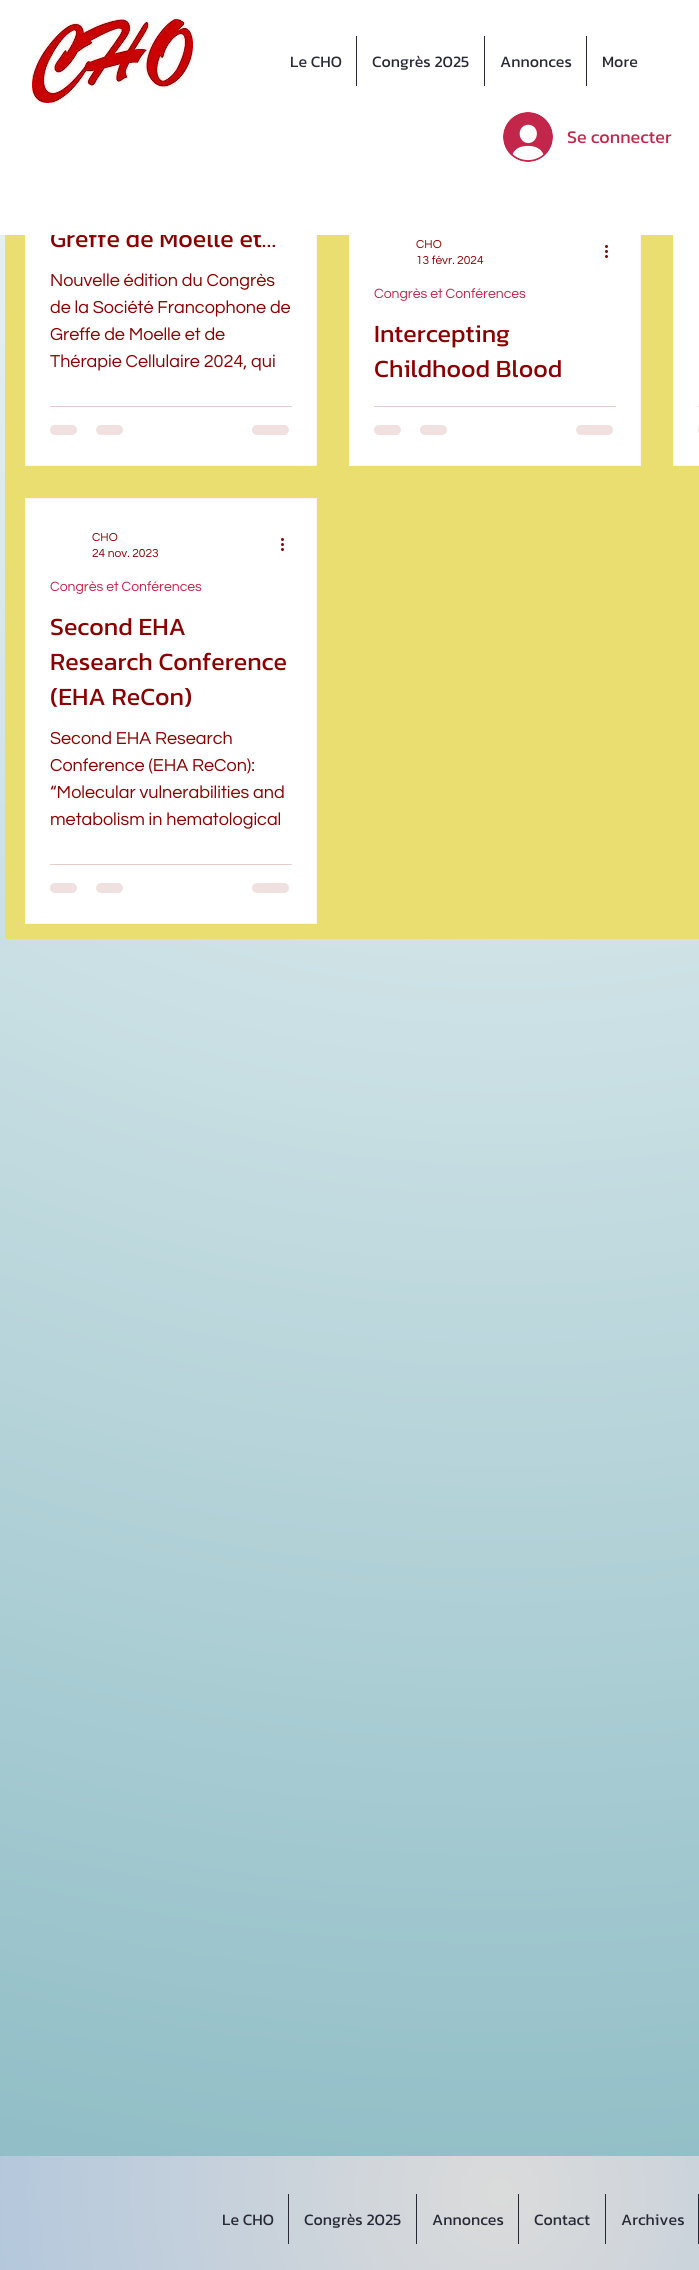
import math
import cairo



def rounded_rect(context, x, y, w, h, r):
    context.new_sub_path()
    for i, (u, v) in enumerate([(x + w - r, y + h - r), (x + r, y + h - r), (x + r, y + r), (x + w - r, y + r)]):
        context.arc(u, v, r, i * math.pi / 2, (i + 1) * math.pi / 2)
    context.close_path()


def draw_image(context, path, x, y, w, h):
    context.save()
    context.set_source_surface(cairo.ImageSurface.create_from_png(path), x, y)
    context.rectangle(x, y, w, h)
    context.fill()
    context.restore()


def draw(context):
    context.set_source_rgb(1, 1, 1)
    context.paint()
    gradient = cairo.RadialGradient(500, -15, 0, 500, -15, 2520)
    gradient.add_color_stop_rgba(0, 1, 1, 1, 1)
    gradient.add_color_stop_rgba(1, 130 / 255, 181 / 255, 191 / 255, 1)
    context.set_source(gradient)
    context.rectangle(0, 235, 699, 1921)
    context.fill()
    context.set_source_rgb(234 / 255, 222 / 255, 113 / 255)
    context.rectangle(5, 235, 694, 704)
    context.fill()
    context.set_source_rgb(1, 1, 1)
    context.rectangle(26, 235, 290, 230)
    context.fill()
    context.rectangle(25.5, 40.5, 291, 425)
    context.set_source_rgb(1, 244 / 255, 241 / 255)
    context.set_line_width(1)
    context.stroke()
    context.set_source_rgb(232 / 255, 204 / 255, 204 / 255)
    context.rectangle(50, 406, 242, 1)
    context.fill()
    context.set_source_rgb(241 / 255, 224 / 255, 224 / 255)
    rounded_rect(context, 50, 425, 27, 10, 5)
    context.fill()
    rounded_rect(context, 96, 425, 27, 10, 5)
    context.fill()
    rounded_rect(context, 252, 425, 37, 10, 5)
    context.fill()
    context.set_source_rgb(1, 1, 1)
    context.rectangle(350, 235, 290, 230)
    context.fill()
    context.rectangle(349.5, 40.5, 291, 425)
    context.set_source_rgb(1, 244 / 255, 241 / 255)
    context.stroke()
    draw_image(context, "images/3.png", 605, 245, 3, 13)
    context.set_source_rgb(232 / 255, 204 / 255, 204 / 255)
    context.rectangle(374, 406, 242, 1)
    context.fill()
    context.set_source_rgb(241 / 255, 224 / 255, 224 / 255)
    rounded_rect(context, 374, 425, 27, 10, 5)
    context.fill()
    rounded_rect(context, 420, 425, 27, 10, 5)
    context.fill()
    rounded_rect(context, 576, 425, 37, 10, 5)
    context.fill()
    context.set_source_rgb(1, 1, 1)
    context.rectangle(674, 235, 25, 230)
    context.fill()
    context.rectangle(673.5, 40.5, 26, 425)
    context.set_source_rgb(1, 244 / 255, 241 / 255)
    context.stroke()
    context.set_source_rgb(232 / 255, 204 / 255, 204 / 255)
    context.rectangle(698, 406, 1, 1)
    context.fill()
    context.set_source_rgb(241 / 255, 224 / 255, 224 / 255)
    rounded_rect(context, 698, 425, 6, 10, 5)
    context.fill()
    context.set_source_rgb(1, 1, 1)
    context.rectangle(25.5, 498.5, 291, 425)
    context.fill_preserve()
    context.set_source_rgb(1, 244 / 255, 241 / 255)
    context.stroke()
    draw_image(context, "images/3.png", 281, 538, 3, 13)
    context.set_source_rgb(232 / 255, 204 / 255, 204 / 255)
    context.rectangle(50, 864, 242, 1)
    context.fill()
    context.set_source_rgb(241 / 255, 224 / 255, 224 / 255)
    rounded_rect(context, 50, 883, 27, 10, 5)
    context.fill()
    rounded_rect(context, 96, 883, 27, 10, 5)
    context.fill()
    rounded_rect(context, 252, 883, 37, 10, 5)
    context.fill()
    gradient = cairo.RadialGradient(500, 2192, 0, 500, 2192, 506)
    gradient.add_color_stop_rgba(0, 219 / 255, 219 / 255, 219 / 255, 1)
    gradient.add_color_stop_rgba(1, 180 / 255, 200 / 255, 220 / 255, 1)
    context.set_source(gradient)
    context.rectangle(0, 2156, 699, 114)
    context.fill()
    context.set_source_rgb(40 / 255, 41 / 255, 54 / 255)
    context.rectangle(288, 2194, 1, 50)
    context.fill()
    context.rectangle(416, 2194, 1, 50)
    context.fill()
    context.rectangle(518, 2194, 1, 50)
    context.fill()
    context.rectangle(605, 2194, 1, 50)
    context.fill()
    context.rectangle(698, 2194, 1, 50)
    context.fill()
    context.select_font_face("Kanit")
    context.set_font_size(25)
    context.set_source_rgb(139 / 255, 0, 0)
    context.move_to(50, 247)
    context.show_text("Greffe de Moelle et…")
    context.set_source_rgb(1, 1, 1)
    context.rectangle(25, 40, 674, 195)
    context.fill()
    draw_image(context, "images/2.png", 503, 112, 50, 50)
    context.set_font_size(18)
    context.set_source_rgb(194 / 255, 39 / 255, 75 / 255)
    context.move_to(567, 143)
    context.show_text("Se connecter")
    context.set_font_size(16)
    context.set_source_rgb(40 / 255, 41 / 255, 54 / 255)
    context.move_to(602, 67)
    context.show_text("More")
    context.rectangle(586, 36, 1, 50)
    context.fill()
    context.move_to(500, 67)
    context.show_text("Annonces")
    context.rectangle(484, 36, 1, 50)
    context.fill()
    context.move_to(372, 67)
    context.show_text("Congrès 2025")
    context.rectangle(356, 36, 1, 50)
    context.fill()
    context.move_to(290, 67)
    context.show_text("Le CHO")
    draw_image(context, "images/1.png", 32, 19, 161, 84)
    context.select_font_face("Questrial")
    context.set_font_size(18)
    context.set_source_rgb(139 / 255, 0, 0)
    context.move_to(50, 286)
    context.show_text("Nouvelle édition du Congrès")
    context.move_to(50, 313)
    context.show_text("de la Société Francophone de")
    context.move_to(50, 340)
    context.show_text("Greffe de Moelle et de")
    context.move_to(50, 367)
    context.show_text("Thérapie Cellulaire 2024, qui")
    context.set_font_size(12)
    context.move_to(416, 248)
    context.show_text("CHO")
    context.move_to(416, 264)
    context.show_text("13 févr. 2024")
    context.set_font_size(14)
    context.set_source_rgb(194 / 255, 39 / 255, 75 / 255)
    context.move_to(374, 298)
    context.show_text("Congrès et Conférences")
    context.select_font_face("Kanit")
    context.set_font_size(25)
    context.set_source_rgb(139 / 255, 0, 0)
    context.move_to(374, 342)
    context.show_text("Intercepting")
    context.move_to(374, 377)
    context.show_text("Childhood Blood")
    context.select_font_face("Questrial")
    context.set_font_size(12)
    context.move_to(92, 541)
    context.show_text("CHO")
    context.move_to(92, 557)
    context.show_text("24 nov. 2023")
    context.set_font_size(14)
    context.set_source_rgb(194 / 255, 39 / 255, 75 / 255)
    context.move_to(50, 591)
    context.show_text("Congrès et Conférences")
    context.select_font_face("Kanit")
    context.set_font_size(25)
    context.set_source_rgb(139 / 255, 0, 0)
    context.move_to(50, 635)
    context.show_text("Second EHA")
    context.move_to(50, 670)
    context.show_text("Research Conference")
    context.move_to(50, 705)
    context.show_text("(EHA ReCon)")
    context.select_font_face("Questrial")
    context.set_font_size(18)
    context.move_to(50, 744)
    context.show_text("Second EHA Research")
    context.move_to(50, 771)
    context.show_text("Conference (EHA ReCon):")
    context.move_to(50, 798)
    context.show_text("“Molecular vulnerabilities and")
    context.move_to(50, 825)
    context.show_text("metabolism in hematological")
    context.select_font_face("Kanit")
    context.set_font_size(16)
    context.set_source_rgb(40 / 255, 41 / 255, 54 / 255)
    context.move_to(222, 2225)
    context.show_text("Le CHO")
    context.move_to(304, 2225)
    context.show_text("Congrès 2025")
    context.move_to(432, 2225)
    context.show_text("Annonces")
    context.move_to(534, 2225)
    context.show_text("Contact")
    context.move_to(621, 2225)
    context.show_text("Archives")


surface = cairo.ImageSurface(cairo.Format.RGB24, 699, 2270)
context = cairo.Context(surface)
options = cairo.FontOptions()
options.set_hint_metrics(cairo.HintMetrics.OFF)
options.set_hint_style(cairo.HintStyle.NONE)
context.set_font_options(options)
context.set_miter_limit(4)
draw(context)
surface.write_to_png("out.png")
